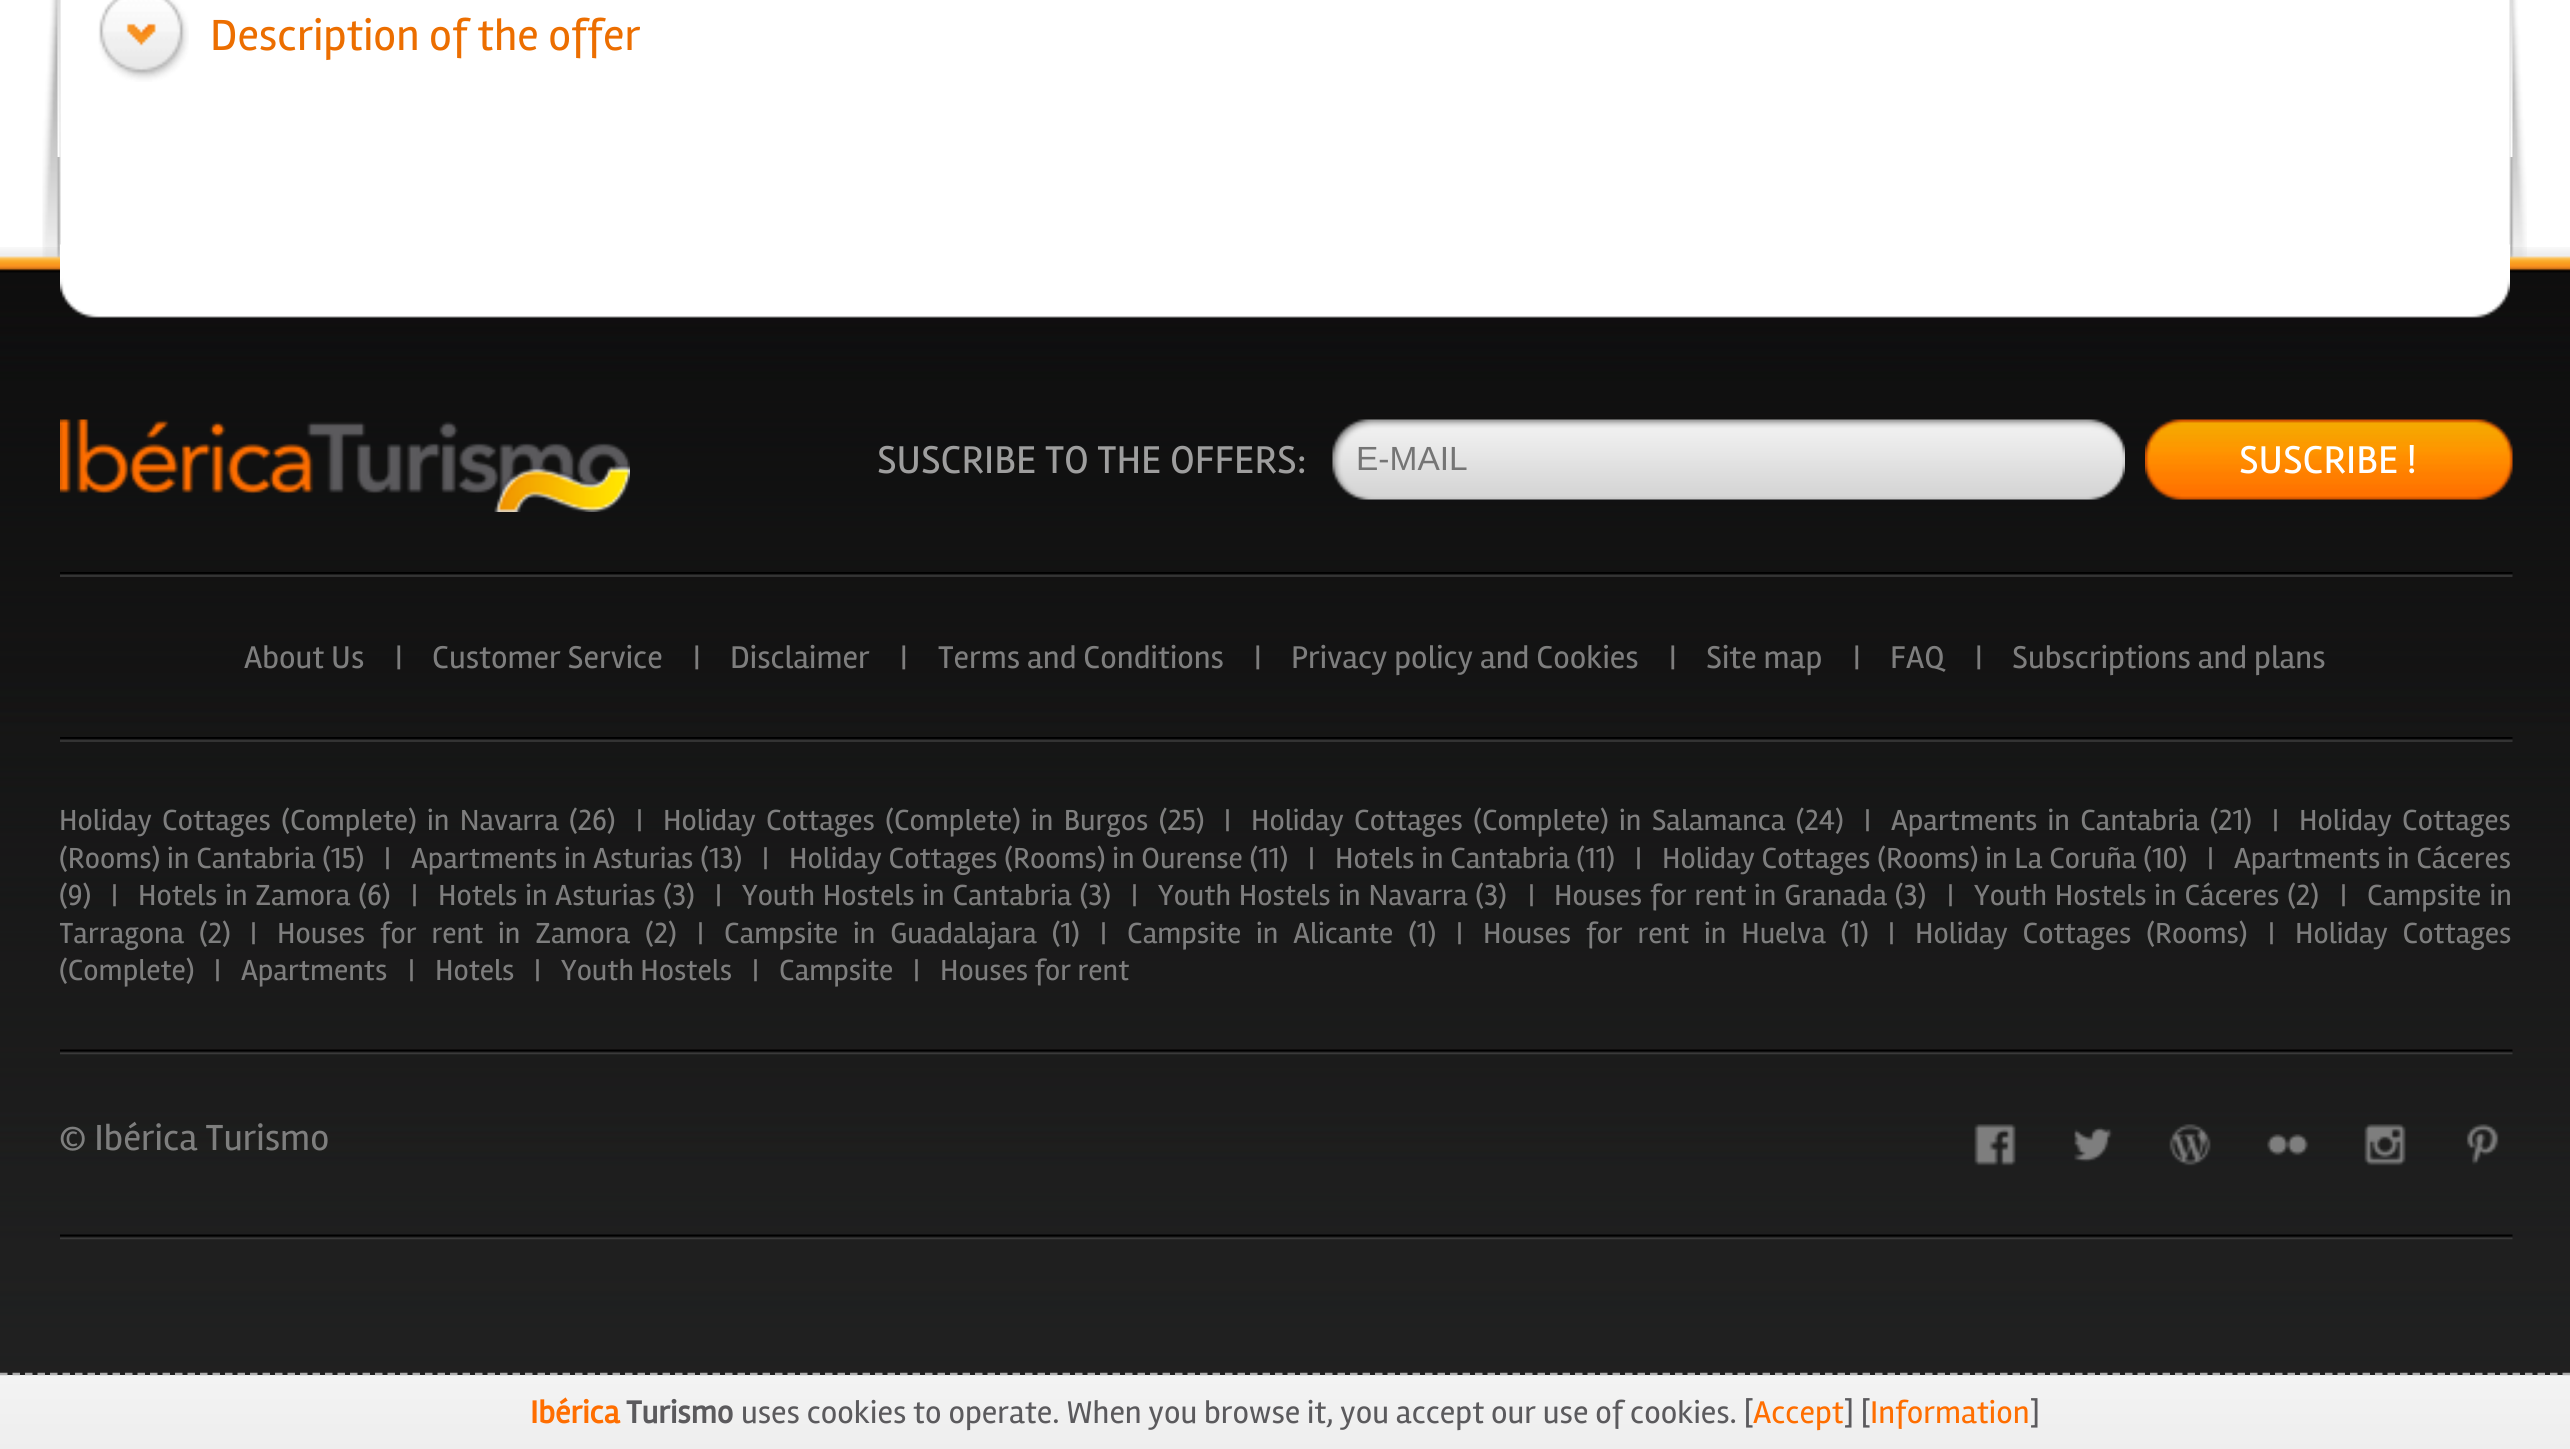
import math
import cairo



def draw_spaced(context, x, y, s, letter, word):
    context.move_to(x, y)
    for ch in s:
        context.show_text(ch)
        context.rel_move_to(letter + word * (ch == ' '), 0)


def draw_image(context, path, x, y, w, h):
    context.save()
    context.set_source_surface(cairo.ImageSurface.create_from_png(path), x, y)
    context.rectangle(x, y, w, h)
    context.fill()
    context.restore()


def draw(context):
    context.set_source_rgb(1, 1, 1)
    context.paint()
    draw_image(context, "images/1.png", 42, 0, 2485, 258)
    draw_image(context, "images/2.png", 57, 0, 2456, 157)
    draw_image(context, "images/3.png", 98, 0, 91, 82)
    draw_image(context, "images/5.png", 0, 247, 2570, 1128)
    draw_image(context, "images/4.png", 60, 244, 2450, 74)
    draw_image(context, "images/6.png", 60, 419, 570, 93)
    draw_image(context, "images/7.png", 1332, 419, 793, 81)
    draw_image(context, "images/8.png", 2145, 419, 368, 81)
    draw_image(context, "images/9.png", 60, 572, 2453, 5)
    draw_image(context, "images/10.png", 60, 737, 2453, 5)
    draw_image(context, "images/11.png", 60, 1049, 2453, 6)
    draw_image(context, "images/12.png", 1974, 1124, 42, 42)
    draw_image(context, "images/13.png", 2074, 1127, 39, 35)
    draw_image(context, "images/14.png", 2169, 1124, 42, 42)
    draw_image(context, "images/15.png", 2267, 1134, 42, 22)
    draw_image(context, "images/16.png", 2364, 1124, 42, 42)
    draw_image(context, "images/17.png", 2466, 1124, 33, 41)
    draw_image(context, "images/18.png", 60, 1234, 2453, 6)
    draw_image(context, "images/19.png", 0, 1375, 2570, 74)
    context.new_path()
    context.move_to(0, 1374)
    context.line_to(2570, 1374)
    context.set_source_rgb(172 / 255, 172 / 255, 172 / 255)
    context.set_line_width(2.5)
    context.set_dash([7.5, 5])
    context.stroke()
    context.select_font_face("Rambla")
    context.set_font_size(45)
    context.set_source_rgb(236 / 255, 110 / 255, 0)
    context.move_to(210, 50)
    context.show_text("Description of the offer")
    context.set_font_size(40)
    context.set_source_rgb(158 / 255, 158 / 255, 158 / 255)
    context.move_to(877, 473)
    context.show_text("SUSCRIBE TO THE OFFERS:")
    context.select_font_face("Liberation Sans")
    context.set_font_size(33.5)
    context.set_source_rgb(117 / 255, 117 / 255, 117 / 255)
    context.move_to(1356, 470)
    context.show_text("E-MAIL")
    context.select_font_face("Rambla")
    context.set_font_size(40)
    context.set_source_rgb(1, 1, 1)
    context.move_to(2239, 473)
    context.show_text("SUSCRIBE !")
    context.set_font_size(32.5)
    context.set_source_rgb(126 / 255, 126 / 255, 126 / 255)
    context.move_to(244, 668)
    context.show_text("About Us")
    context.move_to(395, 668)
    context.show_text("|")
    context.move_to(432, 668)
    context.show_text("Customer Service")
    context.move_to(693, 668)
    context.show_text("|")
    context.move_to(730, 668)
    context.show_text("Disclaimer")
    context.move_to(900, 668)
    context.show_text("|")
    context.move_to(938, 668)
    context.show_text("Terms and Conditions")
    context.move_to(1254, 668)
    context.show_text("|")
    context.move_to(1291, 668)
    context.show_text("Privacy policy and Cookies")
    context.move_to(1669, 668)
    context.show_text("|")
    context.move_to(1706, 668)
    context.show_text("Site map")
    context.move_to(1853, 668)
    context.show_text("|")
    context.move_to(1890, 668)
    context.show_text("FAQ")
    context.move_to(1975, 668)
    context.show_text("|")
    context.move_to(2012, 668)
    context.show_text("Subscriptions and plans")
    context.set_font_size(30)
    draw_spaced(context, 59, 830, "Holiday Cottages (Complete) in Navarra (26)", 0, 4)
    context.move_to(636, 830)
    context.show_text("|")
    draw_spaced(context, 663, 830, "Holiday Cottages (Complete) in Burgos (25)", 0, 4)
    context.move_to(1224, 830)
    context.show_text("|")
    draw_spaced(context, 1251, 830, "Holiday Cottages (Complete) in Salamanca (24)", 0, 4)
    context.move_to(1864, 830)
    context.show_text("|")
    draw_spaced(context, 1891, 830, "Apartments in Cantabria (21)", 0, 4)
    context.move_to(2272, 830)
    context.show_text("|")
    draw_spaced(context, 2299, 830, "Holiday Cottages", 0, 4)
    draw_spaced(context, 59, 868, "(Rooms) in Cantabria (15)", 0, 0.5)
    context.move_to(384, 868)
    context.show_text("|")
    draw_spaced(context, 411, 868, "Apartments in Asturias (13)", 0, 0.5)
    context.move_to(762, 868)
    context.show_text("|")
    draw_spaced(context, 789, 868, "Holiday Cottages (Rooms) in Ourense (11)", 0, 0.5)
    context.move_to(1308, 868)
    context.show_text("|")
    draw_spaced(context, 1335, 868, "Hotels in Cantabria (11)", 0, 0.5)
    context.move_to(1635, 868)
    context.show_text("|")
    draw_spaced(context, 1662, 868, "Holiday Cottages (Rooms) in La Coruña (10)", 0, 0.5)
    context.move_to(2207, 868)
    context.show_text("|")
    draw_spaced(context, 2234, 868, "Apartments in Cáceres", 0, 0.5)
    context.move_to(59, 905)
    context.show_text("(9)")
    context.move_to(111, 905)
    context.show_text("|")
    draw_spaced(context, 138, 905, "Hotels in Zamora (6)", 0, 1.5)
    context.move_to(411, 905)
    context.show_text("|")
    draw_spaced(context, 438, 905, "Hotels in Asturias (3)", 0, 1.5)
    context.move_to(715, 905)
    context.show_text("|")
    draw_spaced(context, 742, 905, "Youth Hostels in Cantabria (3)", 0, 1.5)
    context.move_to(1131, 905)
    context.show_text("|")
    draw_spaced(context, 1158, 905, "Youth Hostels in Navarra (3)", 0, 1.5)
    context.move_to(1528, 905)
    context.show_text("|")
    draw_spaced(context, 1554, 905, "Houses for rent in Granada (3)", 0, 1.5)
    context.move_to(1947, 905)
    context.show_text("|")
    draw_spaced(context, 1974, 905, "Youth Hostels in Cáceres (2)", 0, 1.5)
    context.move_to(2340, 905)
    context.show_text("|")
    draw_spaced(context, 2367, 905, "Campsite in", 0, 2)
    context.save()
    context.rectangle(60, 803, 2453, 187)
    context.clip()
    draw_spaced(context, 59, 943, "Tarragona (2)", 0, 8.5)
    context.restore()
    context.move_to(250, 943)
    context.show_text("|")
    draw_spaced(context, 277, 943, "Houses for rent in Zamora (2)", 0, 8.5)
    context.move_to(697, 943)
    context.show_text("|")
    draw_spaced(context, 724, 943, "Campsite in Guadalajara (1)", 0, 8.5)
    context.move_to(1100, 943)
    context.show_text("|")
    draw_spaced(context, 1127, 943, "Campsite in Alicante (1)", 0, 8.5)
    context.move_to(1456, 943)
    context.show_text("|")
    draw_spaced(context, 1483, 943, "Houses for rent in Huelva (1)", 0, 8.5)
    context.move_to(1888, 943)
    context.show_text("|")
    draw_spaced(context, 1915, 943, "Holiday Cottages (Rooms)", 0, 8.5)
    context.move_to(2268, 943)
    context.show_text("|")
    draw_spaced(context, 2295, 943, "Holiday Cottages", 0, 8.5)
    context.move_to(59, 980)
    context.show_text("(Complete)")
    context.move_to(214, 980)
    context.show_text("|")
    context.move_to(241, 980)
    context.show_text("Apartments")
    context.move_to(408, 980)
    context.show_text("|")
    context.move_to(435, 980)
    context.show_text("Hotels")
    context.move_to(534, 980)
    context.show_text("|")
    context.move_to(561, 980)
    context.show_text("Youth Hostels")
    context.move_to(752, 980)
    context.show_text("|")
    context.move_to(779, 980)
    context.show_text("Campsite")
    context.move_to(913, 980)
    context.show_text("|")
    context.move_to(940, 980)
    context.show_text("Houses for rent")
    context.set_font_size(37.5)
    context.move_to(59, 1150)
    context.show_text("© Ibérica Turismo")
    context.select_font_face("Rambla", cairo.FontSlant.NORMAL, cairo.FontWeight.BOLD)
    context.set_font_size(32.5)
    context.set_source_rgb(1, 110 / 255, 0)
    context.move_to(530, 1423)
    context.show_text("Ibérica")
    context.set_source_rgb(91 / 255, 90 / 255, 93 / 255)
    context.move_to(626, 1423)
    context.show_text("Turismo")
    context.select_font_face("Rambla")
    context.move_to(741, 1423)
    context.show_text("uses cookies to operate. When you browse it, you accept our use of cookies. [")
    context.set_source_rgb(1, 110 / 255, 0)
    context.move_to(1753, 1423)
    context.show_text("Accept")
    context.set_source_rgb(91 / 255, 90 / 255, 93 / 255)
    context.move_to(1844, 1423)
    context.show_text("] [")
    context.set_source_rgb(1, 110 / 255, 0)
    context.move_to(1870, 1423)
    context.show_text("Information")
    context.set_source_rgb(91 / 255, 90 / 255, 93 / 255)
    context.move_to(2030, 1423)
    context.show_text("]")


surface = cairo.ImageSurface(cairo.Format.RGB24, 2570, 1449)
context = cairo.Context(surface)
options = cairo.FontOptions()
options.set_hint_metrics(cairo.HintMetrics.OFF)
options.set_hint_style(cairo.HintStyle.NONE)
context.set_font_options(options)
context.set_miter_limit(4)
draw(context)
surface.write_to_png("out.png")
